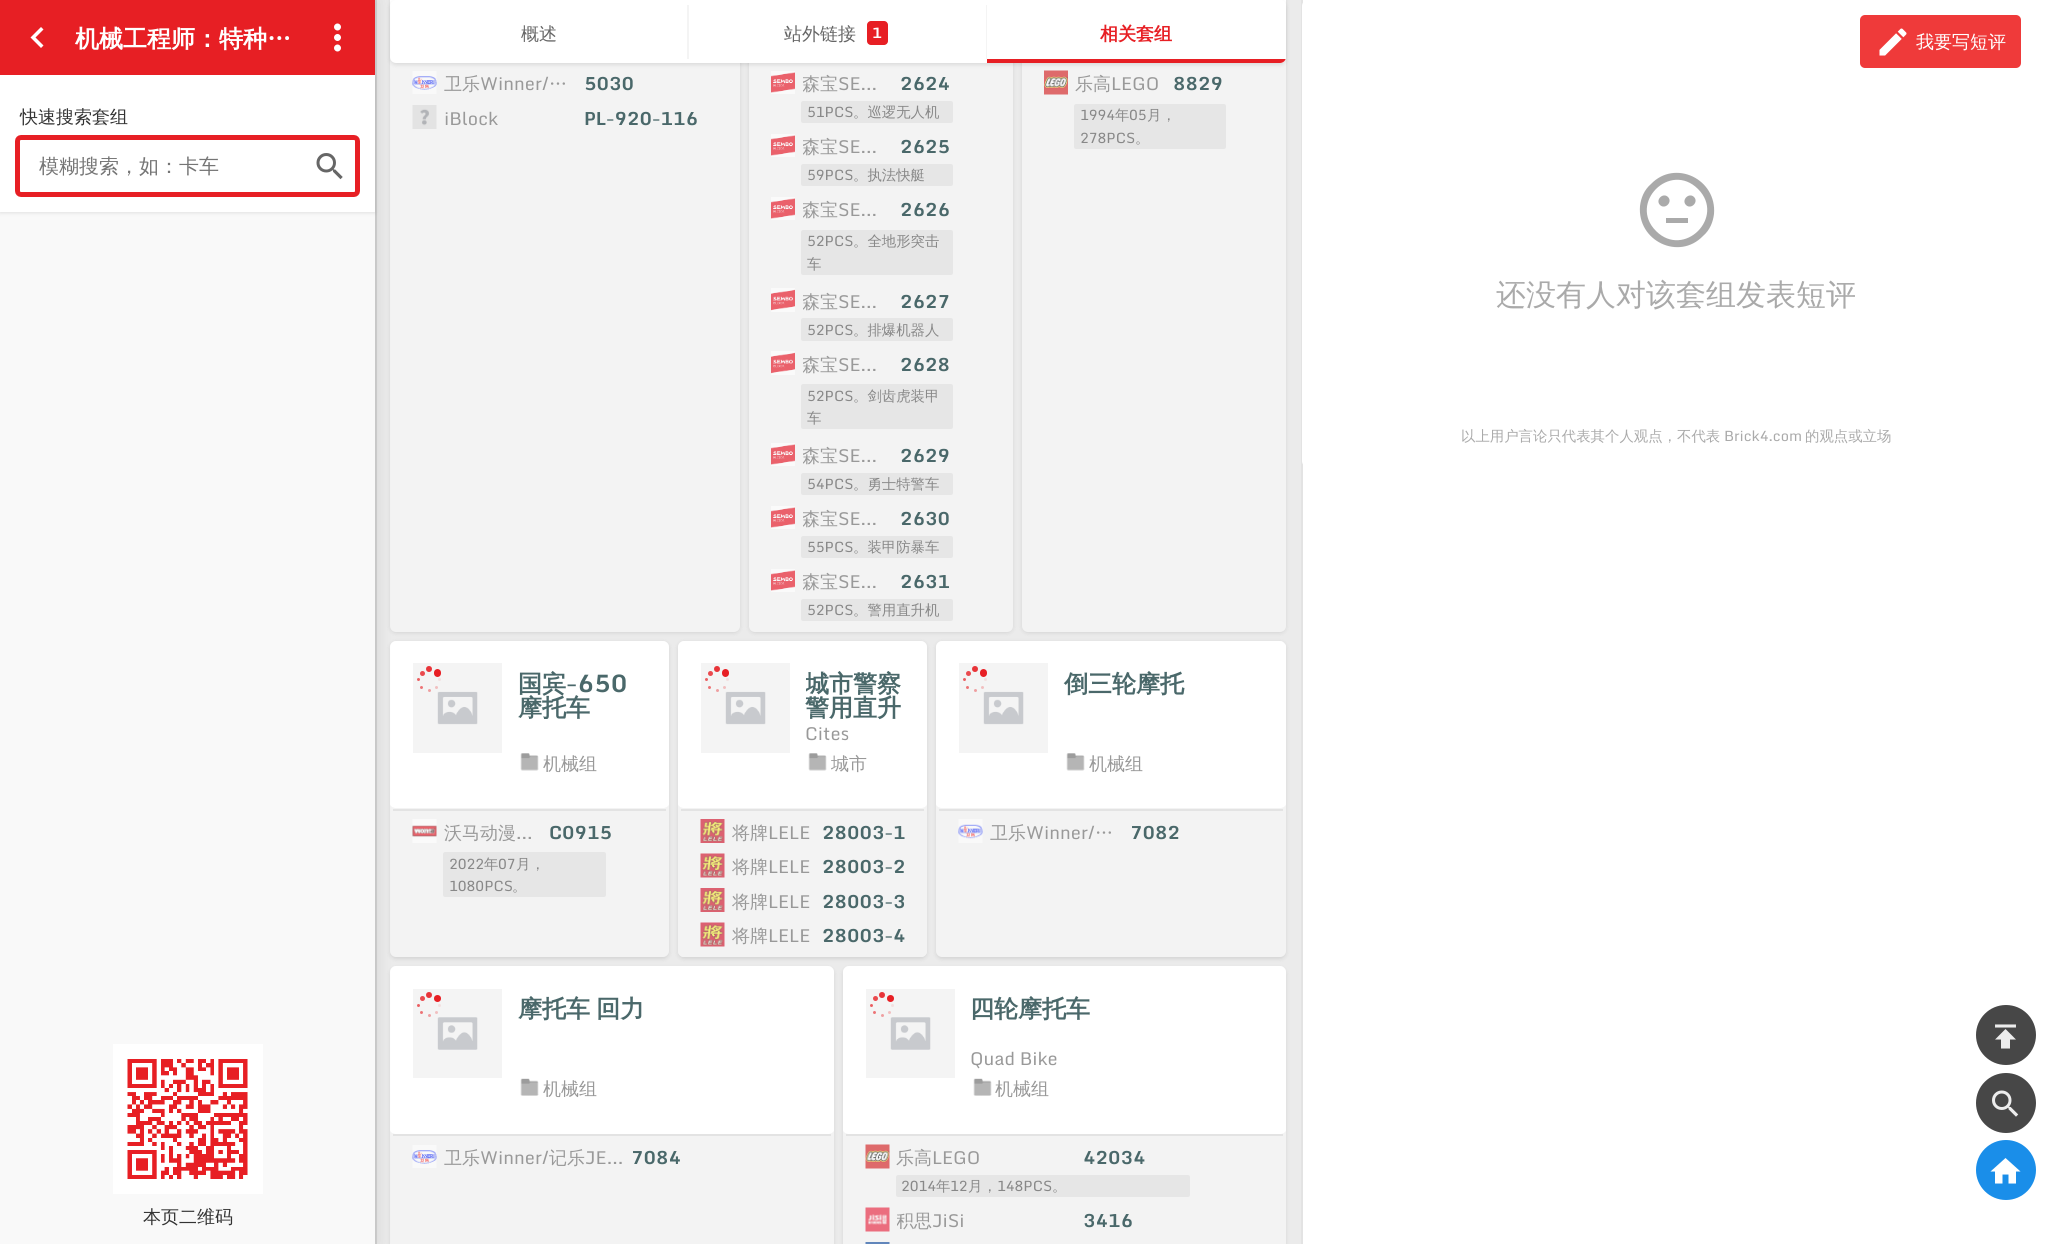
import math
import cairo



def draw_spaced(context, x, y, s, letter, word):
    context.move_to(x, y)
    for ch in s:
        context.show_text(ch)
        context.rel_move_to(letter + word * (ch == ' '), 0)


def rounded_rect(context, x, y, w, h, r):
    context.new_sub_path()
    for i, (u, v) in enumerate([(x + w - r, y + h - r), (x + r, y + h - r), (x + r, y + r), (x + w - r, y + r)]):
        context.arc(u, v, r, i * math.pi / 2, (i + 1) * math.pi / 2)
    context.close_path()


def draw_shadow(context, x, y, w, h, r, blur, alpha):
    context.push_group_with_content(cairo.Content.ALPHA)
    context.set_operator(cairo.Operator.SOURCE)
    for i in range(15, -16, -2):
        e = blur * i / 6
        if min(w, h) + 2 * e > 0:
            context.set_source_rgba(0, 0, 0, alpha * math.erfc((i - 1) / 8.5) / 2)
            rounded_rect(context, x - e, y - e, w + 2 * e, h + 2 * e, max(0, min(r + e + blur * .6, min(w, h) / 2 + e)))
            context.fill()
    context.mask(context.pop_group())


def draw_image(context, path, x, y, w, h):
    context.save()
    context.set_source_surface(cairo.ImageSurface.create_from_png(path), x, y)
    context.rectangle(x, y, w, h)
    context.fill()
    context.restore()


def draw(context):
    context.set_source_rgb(235 / 255, 235 / 255, 235 / 255)
    context.paint()
    context.set_source_rgb(212 / 255, 212 / 255, 212 / 255)
    context.rectangle(375, 0, 2, 1244)
    context.fill()
    context.set_source_rgb(0, 0, 0)
    draw_shadow(context, 390, -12, 350, 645, 6, 2, 0.1)
    context.set_source_rgb(243 / 255, 243 / 255, 243 / 255)
    rounded_rect(context, 390, -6, 350, 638, 6)
    context.fill()
    context.set_source_rgb(1, 1, 1)
    context.new_path()
    context.move_to(396, -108)
    context.curve_to(393, -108, 390, -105, 390, -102)
    context.line_to(390, 56)
    context.curve_to(390, 58, 393, 60, 396, 60)
    context.line_to(734, 60)
    context.curve_to(737, 60, 740, 58, 740, 56)
    context.line_to(740, -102)
    context.curve_to(740, -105, 737, -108, 734, -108)
    context.close_path()
    context.fill()
    draw_image(context, "images/5.png", 412, 71, 25, 23)
    context.set_source_rgb(0, 0, 0)
    draw_shadow(context, 749, -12, 264, 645, 6, 2, 0.1)
    context.set_source_rgb(243 / 255, 243 / 255, 243 / 255)
    context.new_path()
    context.move_to(749, 62)
    context.line_to(1013, 62)
    context.line_to(1013, 626)
    context.curve_to(1013, 629.5, 1010.5, 632, 1007, 632)
    context.line_to(755, 632)
    context.curve_to(751.5, 632, 749, 629.5, 749, 626)
    context.close_path()
    context.fill()
    draw_image(context, "images/7.png", 771, 71, 24, 23)
    context.set_source_rgb(0, 0, 0)
    draw_shadow(context, 1022, -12, 264, 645, 6, 2, 0.1)
    context.set_source_rgb(243 / 255, 243 / 255, 243 / 255)
    rounded_rect(context, 1022, -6, 264, 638, 6)
    context.fill()
    context.set_source_rgb(1, 1, 1)
    context.new_path()
    context.move_to(1028, -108)
    context.curve_to(1025, -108, 1022, -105, 1022, -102)
    context.line_to(1022, 57)
    context.curve_to(1023, 59, 1025, 60, 1028, 60)
    context.line_to(1280, 60)
    context.curve_to(1283, 60, 1286, 58, 1286, 56)
    context.line_to(1286, -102)
    context.curve_to(1286, -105, 1283, -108, 1280, -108)
    context.close_path()
    context.fill()
    draw_image(context, "images/9.png", 1044, 70, 24, 25)
    context.set_source_rgb(0, 0, 0)
    draw_shadow(context, 390, 2, 896, 63, 6, 2, 0.1)
    context.set_source_rgb(1, 1, 1)
    rounded_rect(context, 390, 0, 896, 63, 6)
    context.fill()
    context.set_source_rgb(0, 0, 0)
    draw_shadow(context, 390, 642, 279, 317, 6, 2, 0.1)
    context.set_source_rgb(243 / 255, 243 / 255, 243 / 255)
    rounded_rect(context, 390, 641, 279, 316, 6)
    context.fill()
    context.set_source_rgb(227 / 255, 227 / 255, 227 / 255)
    context.rectangle(393, 809, 273, 2)
    context.fill()
    context.set_source_rgb(1, 1, 1)
    context.new_path()
    context.move_to(396, 641)
    context.curve_to(393, 641, 390, 644, 390, 647)
    context.line_to(390, 804)
    context.curve_to(390, 806, 393, 808, 396, 808)
    context.line_to(663, 808)
    context.curve_to(666, 808, 669, 806, 669, 804)
    context.line_to(669, 647)
    context.curve_to(669, 644, 666, 641, 663, 641)
    context.close_path()
    context.fill()
    context.set_source_rgb(0, 0, 0)
    draw_shadow(context, 390, 968, 444, 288, 6, 2, 0.1)
    context.set_source_rgb(243 / 255, 243 / 255, 243 / 255)
    rounded_rect(context, 390, 966, 444, 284, 6)
    context.fill()
    context.set_source_rgb(227 / 255, 227 / 255, 227 / 255)
    context.rectangle(393, 1134, 438, 2)
    context.fill()
    context.set_source_rgb(1, 1, 1)
    context.new_path()
    context.move_to(396, 966)
    context.curve_to(393, 966, 390, 969, 390, 972)
    context.line_to(390, 1130)
    context.curve_to(390, 1132, 393, 1134, 396, 1134)
    context.line_to(828, 1134)
    context.curve_to(831, 1134, 834, 1132, 834, 1130)
    context.line_to(834, 972)
    context.curve_to(834, 969, 831, 966, 828, 966)
    context.close_path()
    context.fill()
    context.set_source_rgb(0, 0, 0)
    draw_shadow(context, 2, 0, 375, 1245, 0, 7.5, 0.1)
    context.set_source_rgb(249 / 255, 249 / 255, 249 / 255)
    context.rectangle(0, 212, 375, 1032)
    context.fill()
    context.set_source_rgb(0, 0, 0)
    draw_shadow(context, 0, 77, 375, 136, 0, 2, 0.1)
    context.set_source_rgb(231 / 255, 31 / 255, 36 / 255)
    context.rectangle(0, 0, 375, 75)
    context.fill()
    context.set_source_rgb(1, 1, 1)
    context.new_path()
    context.move_to(43.5, 29.5)
    context.line_to(35.5, 37.5)
    context.line_to(43.5, 45.5)
    context.line_to(41, 48)
    context.line_to(30.5, 37.5)
    context.line_to(41, 27)
    context.close_path()
    context.fill()
    draw_image(context, "images/1.png", 334, 23, 7, 29)
    context.rectangle(0, 75, 375, 137)
    context.fill()
    rounded_rect(context, 17.5, 137.5, 340, 57, 3.5)
    context.set_source_rgb(231 / 255, 31 / 255, 36 / 255)
    context.set_line_width(5)
    context.stroke()
    draw_image(context, "images/2.png", 316, 153, 27, 27)
    context.rectangle(120.5, 1051.5, 135, 135)
    context.set_source_rgb(1, 1, 1)
    context.set_line_width(15)
    context.stroke()
    draw_image(context, "images/3.png", 127, 1059, 121, 120)
    context.set_source_rgb(244 / 255, 244 / 255, 244 / 255)
    context.rectangle(687, 5, 2, 54)
    context.fill()
    context.set_source_rgb(231 / 255, 31 / 255, 36 / 255)
    rounded_rect(context, 867, 21, 21, 24, 4)
    context.fill()
    context.set_source_rgb(244 / 255, 244 / 255, 244 / 255)
    context.rectangle(986, 5, 1, 54)
    context.fill()
    context.set_source_rgb(1, 1, 1)
    context.new_path()
    context.move_to(987, 0)
    context.line_to(1280, 0)
    context.curve_to(1283.5, 0, 1286, 2.5, 1286, 6)
    context.line_to(1286, 57)
    context.curve_to(1286, 60.5, 1283.5, 63, 1280, 63)
    context.line_to(987, 63)
    context.close_path()
    context.fill()
    context.save()
    rounded_rect(context, 390, 0, 896, 63, 6)
    context.clip()
    context.set_source_rgb(231 / 255, 31 / 255, 36 / 255)
    context.rectangle(987, 59, 299, 4)
    context.fill()
    context.restore()
    context.rectangle(1303, 0, 747, 1244)
    context.fill()
    context.set_source_rgb(227 / 255, 227 / 255, 227 / 255)
    context.rectangle(1301, 0, 2, 1244)
    context.fill()
    context.set_source_rgb(1, 1, 1)
    rounded_rect(context, 1302, 0, 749, 467, 6)
    context.fill()
    context.set_source_rgb(239 / 255, 58 / 255, 58 / 255)
    rounded_rect(context, 1860, 15, 161, 53, 5)
    context.fill()
    draw_image(context, "images/4.png", 1879, 28, 28, 28)
    context.set_source_rgb(170 / 255, 170 / 255, 170 / 255)
    context.new_path()
    context.move_to(1656, 231)
    context.curve_to(1684, 259, 1726, 217, 1698, 189)
    context.curve_to(1670, 161, 1628, 203, 1656, 231)
    context.close_path()
    context.move_to(1651, 184)
    context.curve_to(1675, 159, 1717, 179, 1714, 214)
    context.curve_to(1713, 222, 1710, 230, 1703, 236)
    context.curve_to(1679, 261, 1637, 241, 1640, 206)
    context.curve_to(1641, 198, 1644, 190, 1651, 184)
    context.close_path()
    context.move_to(1660, 205)
    context.curve_to(1655, 200, 1663, 192, 1668, 197)
    context.curve_to(1673, 202, 1665, 210, 1660, 205)
    context.close_path()
    context.move_to(1686, 205)
    context.curve_to(1681, 200, 1689, 192, 1694, 197)
    context.curve_to(1699, 202, 1691, 210, 1686, 205)
    context.close_path()
    context.move_to(1666, 218)
    context.line_to(1688, 218)
    context.line_to(1688, 223)
    context.line_to(1666, 223)
    context.close_path()
    context.fill()
    draw_image(context, "images/6.png", 412, 105, 25, 24)
    context.set_source_rgb(230 / 255, 230 / 255, 230 / 255)
    rounded_rect(context, 801, 101, 152, 22, 2)
    context.fill()
    draw_image(context, "images/7.png", 771, 134, 24, 23)
    rounded_rect(context, 801, 164, 152, 22, 2)
    context.fill()
    draw_image(context, "images/7.png", 771, 197, 24, 23)
    rounded_rect(context, 801, 230, 152, 45, 2)
    context.fill()
    draw_image(context, "images/8.png", 771, 288, 24, 24)
    rounded_rect(context, 801, 318, 152, 23, 2)
    context.fill()
    draw_image(context, "images/8.png", 771, 351, 24, 24)
    rounded_rect(context, 801, 384, 152, 45, 2)
    context.fill()
    draw_image(context, "images/7.png", 771, 443, 24, 23)
    rounded_rect(context, 801, 473, 152, 22, 2)
    context.fill()
    draw_image(context, "images/7.png", 771, 506, 24, 23)
    rounded_rect(context, 801, 536, 152, 22, 2)
    context.fill()
    draw_image(context, "images/7.png", 771, 569, 24, 23)
    rounded_rect(context, 801, 599, 152, 22, 2)
    context.fill()
    rounded_rect(context, 1074, 104, 152, 45, 2)
    context.fill()
    draw_image(context, "images/10.png", 413, 663, 89, 90)
    context.set_source_rgb(243 / 255, 223 / 255, 223 / 255)
    context.arc(439.5, 679.5, 1.5, 0, 2 * math.pi)
    context.fill()
    context.set_source_rgb(241 / 255, 191 / 255, 192 / 255)
    context.arc(436.5, 687.5, 1.5, 0, 2 * math.pi)
    context.fill()
    context.set_source_rgb(239 / 255, 159 / 255, 161 / 255)
    context.arc(429.5, 690.5, 1.5, 0, 2 * math.pi)
    context.fill()
    context.set_source_rgb(236 / 255, 116 / 255, 119 / 255)
    context.arc(421.5, 687.5, 1.5, 0, 2 * math.pi)
    context.fill()
    context.set_source_rgb(235 / 255, 95 / 255, 98 / 255)
    context.arc(418.5, 679.5, 1.5, 0, 2 * math.pi)
    context.fill()
    context.set_source_rgb(234 / 255, 74 / 255, 78 / 255)
    context.arc(422.5, 673.5, 2.5, 0, 2 * math.pi)
    context.fill()
    context.set_source_rgb(232 / 255, 52 / 255, 57 / 255)
    context.arc(429, 669, 3, 0, 2 * math.pi)
    context.fill()
    context.set_source_rgb(231 / 255, 31 / 255, 36 / 255)
    rounded_rect(context, 434, 669, 7, 8, 3.5)
    context.fill()
    draw_image(context, "images/11.png", 520, 753, 19, 18)
    draw_image(context, "images/12.png", 412, 819, 25, 24)
    context.set_source_rgb(230 / 255, 230 / 255, 230 / 255)
    rounded_rect(context, 443, 852, 163, 45, 2)
    context.fill()
    context.set_source_rgb(0, 0, 0)
    draw_shadow(context, 678, 642, 249, 317, 6, 2, 0.1)
    context.set_source_rgb(243 / 255, 243 / 255, 243 / 255)
    rounded_rect(context, 678, 641, 249, 316, 6)
    context.fill()
    context.new_path()
    context.move_to(678, 810)
    context.line_to(927, 810)
    context.line_to(927, 951)
    context.curve_to(927, 954.5, 924.5, 957, 921, 957)
    context.line_to(684, 957)
    context.curve_to(680.5, 957, 678, 954.5, 678, 951)
    context.close_path()
    context.fill()
    context.set_source_rgb(227 / 255, 227 / 255, 227 / 255)
    context.rectangle(681, 809, 243, 2)
    context.fill()
    context.set_source_rgb(1, 1, 1)
    context.new_path()
    context.move_to(684, 641)
    context.curve_to(681, 641, 678, 644, 678, 647)
    context.line_to(678, 804)
    context.curve_to(678, 806, 681, 808, 684, 808)
    context.line_to(921, 808)
    context.curve_to(924, 808, 927, 806, 927, 804)
    context.line_to(927, 647)
    context.curve_to(927, 644, 924, 641, 921, 641)
    context.close_path()
    context.fill()
    draw_image(context, "images/10.png", 701, 663, 89, 90)
    context.set_source_rgb(243 / 255, 223 / 255, 223 / 255)
    context.arc(727.5, 679.5, 1.5, 0, 2 * math.pi)
    context.fill()
    context.set_source_rgb(241 / 255, 191 / 255, 192 / 255)
    context.arc(724.5, 687.5, 1.5, 0, 2 * math.pi)
    context.fill()
    context.set_source_rgb(239 / 255, 159 / 255, 161 / 255)
    context.arc(717.5, 690.5, 1.5, 0, 2 * math.pi)
    context.fill()
    context.set_source_rgb(236 / 255, 116 / 255, 119 / 255)
    context.arc(709.5, 687.5, 1.5, 0, 2 * math.pi)
    context.fill()
    context.set_source_rgb(235 / 255, 95 / 255, 98 / 255)
    context.arc(706.5, 679.5, 1.5, 0, 2 * math.pi)
    context.fill()
    context.set_source_rgb(234 / 255, 74 / 255, 78 / 255)
    context.arc(710.5, 673.5, 2.5, 0, 2 * math.pi)
    context.fill()
    context.set_source_rgb(232 / 255, 52 / 255, 57 / 255)
    context.arc(717, 669, 3, 0, 2 * math.pi)
    context.fill()
    context.set_source_rgb(231 / 255, 31 / 255, 36 / 255)
    rounded_rect(context, 722, 669, 7, 8, 3.5)
    context.fill()
    draw_image(context, "images/11.png", 808, 753, 19, 18)
    draw_image(context, "images/13.png", 700, 819, 25, 24)
    draw_image(context, "images/14.png", 700, 853, 25, 25)
    draw_image(context, "images/13.png", 700, 888, 25, 24)
    draw_image(context, "images/14.png", 700, 922, 25, 25)
    context.set_source_rgb(0, 0, 0)
    draw_shadow(context, 936, 642, 350, 317, 6, 2, 0.1)
    context.set_source_rgb(243 / 255, 243 / 255, 243 / 255)
    rounded_rect(context, 936, 641, 350, 316, 6)
    context.fill()
    context.set_source_rgb(227 / 255, 227 / 255, 227 / 255)
    context.rectangle(939, 809, 344, 2)
    context.fill()
    context.set_source_rgb(1, 1, 1)
    context.new_path()
    context.move_to(942, 641)
    context.curve_to(939, 641, 936, 644, 936, 647)
    context.line_to(936, 804)
    context.curve_to(936, 806, 939, 808, 942, 808)
    context.line_to(1280, 808)
    context.curve_to(1283, 808, 1286, 806, 1286, 804)
    context.line_to(1286, 646)
    context.curve_to(1286, 645, 1285, 644, 1284, 643)
    context.curve_to(1283, 642, 1282, 641, 1280, 641)
    context.close_path()
    context.fill()
    draw_image(context, "images/10.png", 959, 663, 89, 90)
    context.set_source_rgb(243 / 255, 223 / 255, 223 / 255)
    context.arc(985.5, 679.5, 1.5, 0, 2 * math.pi)
    context.fill()
    context.set_source_rgb(241 / 255, 191 / 255, 192 / 255)
    context.arc(982.5, 687.5, 1.5, 0, 2 * math.pi)
    context.fill()
    context.set_source_rgb(239 / 255, 159 / 255, 161 / 255)
    context.arc(975.5, 690.5, 1.5, 0, 2 * math.pi)
    context.fill()
    context.set_source_rgb(236 / 255, 116 / 255, 119 / 255)
    context.arc(967.5, 687.5, 1.5, 0, 2 * math.pi)
    context.fill()
    context.set_source_rgb(235 / 255, 95 / 255, 98 / 255)
    context.arc(964.5, 679.5, 1.5, 0, 2 * math.pi)
    context.fill()
    context.set_source_rgb(234 / 255, 74 / 255, 78 / 255)
    context.arc(968.5, 673.5, 2.5, 0, 2 * math.pi)
    context.fill()
    context.set_source_rgb(232 / 255, 52 / 255, 57 / 255)
    context.arc(975, 669, 3, 0, 2 * math.pi)
    context.fill()
    context.set_source_rgb(231 / 255, 31 / 255, 36 / 255)
    rounded_rect(context, 980, 669, 7, 8, 3.5)
    context.fill()
    draw_image(context, "images/15.png", 1066, 753, 19, 18)
    draw_image(context, "images/16.png", 958, 819, 25, 24)
    draw_image(context, "images/17.png", 413, 989, 89, 89)
    context.set_source_rgb(243 / 255, 223 / 255, 223 / 255)
    context.arc(439.5, 1005.5, 1.5, 0, 2 * math.pi)
    context.fill()
    context.set_source_rgb(241 / 255, 191 / 255, 192 / 255)
    context.arc(436.5, 1012.5, 1.5, 0, 2 * math.pi)
    context.fill()
    context.set_source_rgb(239 / 255, 159 / 255, 161 / 255)
    context.arc(429.5, 1015.5, 1.5, 0, 2 * math.pi)
    context.fill()
    context.set_source_rgb(236 / 255, 116 / 255, 119 / 255)
    context.arc(421.5, 1012.5, 1.5, 0, 2 * math.pi)
    context.fill()
    context.set_source_rgb(235 / 255, 95 / 255, 98 / 255)
    context.arc(418.5, 1005.5, 1.5, 0, 2 * math.pi)
    context.fill()
    context.set_source_rgb(234 / 255, 74 / 255, 78 / 255)
    context.arc(422.5, 998.5, 2.5, 0, 2 * math.pi)
    context.fill()
    context.set_source_rgb(232 / 255, 52 / 255, 57 / 255)
    context.arc(429, 995, 3, 0, 2 * math.pi)
    context.fill()
    context.set_source_rgb(231 / 255, 31 / 255, 36 / 255)
    context.arc(437.5, 998.5, 3.5, 0, 2 * math.pi)
    context.fill()
    draw_image(context, "images/18.png", 520, 1078, 19, 18)
    draw_image(context, "images/5.png", 412, 1145, 25, 23)
    context.set_source_rgb(0, 0, 0)
    draw_shadow(context, 843, 968, 443, 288, 6, 2, 0.1)
    context.set_source_rgb(243 / 255, 243 / 255, 243 / 255)
    rounded_rect(context, 843, 966, 443, 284, 6)
    context.fill()
    context.set_source_rgb(227 / 255, 227 / 255, 227 / 255)
    context.rectangle(846, 1134, 437, 2)
    context.fill()
    context.set_source_rgb(1, 1, 1)
    context.new_path()
    context.move_to(849, 966)
    context.curve_to(846, 966, 843, 969, 843, 972)
    context.line_to(843, 1130)
    context.curve_to(843, 1132, 846, 1134, 849, 1134)
    context.line_to(1280, 1134)
    context.curve_to(1283, 1134, 1286, 1132, 1286, 1130)
    context.line_to(1286, 972)
    context.curve_to(1286, 969, 1283, 966, 1280, 966)
    context.close_path()
    context.fill()
    draw_image(context, "images/19.png", 866, 989, 89, 89)
    context.set_source_rgb(243 / 255, 223 / 255, 223 / 255)
    context.arc(892.5, 1005.5, 1.5, 0, 2 * math.pi)
    context.fill()
    context.set_source_rgb(241 / 255, 191 / 255, 192 / 255)
    context.arc(889.5, 1012.5, 1.5, 0, 2 * math.pi)
    context.fill()
    context.set_source_rgb(239 / 255, 159 / 255, 161 / 255)
    context.arc(882.5, 1015.5, 1.5, 0, 2 * math.pi)
    context.fill()
    context.set_source_rgb(236 / 255, 116 / 255, 119 / 255)
    context.arc(874.5, 1012.5, 1.5, 0, 2 * math.pi)
    context.fill()
    context.set_source_rgb(235 / 255, 95 / 255, 98 / 255)
    context.arc(871.5, 1005.5, 1.5, 0, 2 * math.pi)
    context.fill()
    context.set_source_rgb(234 / 255, 74 / 255, 78 / 255)
    context.arc(875.5, 998.5, 2.5, 0, 2 * math.pi)
    context.fill()
    context.set_source_rgb(232 / 255, 52 / 255, 57 / 255)
    context.arc(882, 995, 3, 0, 2 * math.pi)
    context.fill()
    context.set_source_rgb(231 / 255, 31 / 255, 36 / 255)
    context.arc(890.5, 998.5, 3.5, 0, 2 * math.pi)
    context.fill()
    draw_image(context, "images/18.png", 973, 1078, 19, 18)
    draw_image(context, "images/20.png", 865, 1144, 25, 25)
    context.set_source_rgb(230 / 255, 230 / 255, 230 / 255)
    rounded_rect(context, 896, 1175, 294, 22, 2)
    context.fill()
    draw_image(context, "images/21.png", 865, 1207, 25, 25)
    draw_image(context, "images/22.png", 865, 1242, 25, 2)
    context.set_source_rgb(71 / 255, 71 / 255, 71 / 255)
    context.arc(2006, 1035, 30, 0, 2 * math.pi)
    context.fill()
    draw_image(context, "images/23.png", 1995, 1024, 21, 25)
    context.arc(2006, 1103, 30, 0, 2 * math.pi)
    context.fill()
    draw_image(context, "images/24.png", 1992, 1090, 27, 27)
    context.set_source_rgb(26 / 255, 142 / 255, 233 / 255)
    context.arc(2006, 1170, 30, 0, 2 * math.pi)
    context.fill()
    context.set_source_rgb(1, 1, 1)
    context.new_path()
    context.move_to(2002.5, 1183.5)
    context.line_to(1995, 1183.5)
    context.line_to(1995, 1171.5)
    context.line_to(1990.5, 1171.5)
    context.line_to(2005.5, 1158)
    context.line_to(2020.5, 1171.5)
    context.line_to(2016, 1171.5)
    context.line_to(2016, 1183.5)
    context.line_to(2008.5, 1183.5)
    context.line_to(2008.5, 1174.5)
    context.line_to(2002.5, 1174.5)
    context.close_path()
    context.fill()
    context.select_font_face("WenQuanYi Zen Hei", cairo.FontSlant.NORMAL, cairo.FontWeight.BOLD)
    context.set_font_size(24)
    context.move_to(75, 47)
    context.show_text("机械工程师：特种…")
    context.select_font_face("WenQuanYi Zen Hei Medium")
    context.set_font_size(18)
    context.set_source_rgb(51 / 255, 51 / 255, 51 / 255)
    context.move_to(20, 123)
    context.show_text("快速搜索套组")
    context.set_font_size(20)
    context.set_source_rgb(117 / 255, 117 / 255, 117 / 255)
    context.move_to(39, 173)
    context.show_text("模糊搜索，如：卡车")
    context.set_font_size(18)
    context.set_source_rgb(51 / 255, 51 / 255, 51 / 255)
    context.move_to(143, 1223)
    context.show_text("本页二维码")
    context.set_source_rgb(102 / 255, 102 / 255, 102 / 255)
    context.move_to(521, 40)
    context.show_text("概述")
    context.move_to(784, 40)
    context.show_text("站外链接")
    context.select_font_face("Monda", cairo.FontSlant.NORMAL, cairo.FontWeight.BOLD)
    context.set_font_size(14.4)
    context.set_source_rgb(1, 1, 1)
    context.move_to(872, 38)
    context.show_text("1")
    context.select_font_face("WenQuanYi Zen Hei", cairo.FontSlant.NORMAL, cairo.FontWeight.BOLD)
    context.set_font_size(18)
    context.set_source_rgb(231 / 255, 31 / 255, 36 / 255)
    context.move_to(1100, 40)
    context.show_text("相关套组")
    context.select_font_face("WenQuanYi Zen Hei Medium")
    context.set_source_rgb(1, 1, 1)
    context.move_to(1916, 48)
    context.show_text("我要写短评")
    context.set_font_size(30)
    context.set_source_rgb(170 / 255, 170 / 255, 170 / 255)
    context.move_to(1496, 305)
    context.show_text("还没有人对该套组发表短评")
    context.set_font_size(14.4)
    context.move_to(1461, 441)
    context.show_text("以上用户言论只代表其个人观点，不代表")
    context.select_font_face("Monda")
    context.move_to(1724, 441)
    context.show_text("Brick4.com")
    context.select_font_face("WenQuanYi Zen Hei Medium")
    context.move_to(1805, 441)
    context.show_text("的观点或立场")
    context.set_font_size(18)
    context.set_source_rgb(153 / 255, 153 / 255, 153 / 255)
    context.move_to(444, 90)
    context.show_text("卫乐")
    context.select_font_face("Monda")
    context.move_to(480, 90)
    context.show_text("Winner/")
    context.select_font_face("WenQuanYi Zen Hei Medium")
    context.move_to(549, 90)
    context.show_text("…")
    context.select_font_face("Monda", cairo.FontSlant.NORMAL, cairo.FontWeight.BOLD)
    context.set_source_rgb(74 / 255, 104 / 255, 106 / 255)
    context.move_to(584, 90)
    context.show_text("5030")
    context.select_font_face("Monda")
    context.set_source_rgb(153 / 255, 153 / 255, 153 / 255)
    context.move_to(444, 125)
    context.show_text("iBlock")
    context.select_font_face("Monda", cairo.FontSlant.NORMAL, cairo.FontWeight.BOLD)
    context.set_source_rgb(74 / 255, 104 / 255, 106 / 255)
    context.move_to(584, 125)
    context.show_text("PL-920-116")
    context.save()
    context.rectangle(803, 69, 97, 29)
    context.clip()
    context.select_font_face("WenQuanYi Zen Hei Medium")
    context.set_source_rgb(153 / 255, 153 / 255, 153 / 255)
    context.move_to(802, 90)
    context.show_text("森宝")
    context.restore()
    context.select_font_face("Monda")
    context.set_source_rgb(153 / 255, 153 / 255, 153 / 255)
    context.move_to(838, 90)
    context.show_text("SE…")
    context.select_font_face("Monda", cairo.FontSlant.NORMAL, cairo.FontWeight.BOLD)
    context.set_source_rgb(74 / 255, 104 / 255, 106 / 255)
    context.move_to(900, 90)
    context.show_text("2624")
    context.select_font_face("Monda")
    context.set_font_size(14.4)
    context.set_source_rgb(136 / 255, 136 / 255, 136 / 255)
    context.move_to(807, 117)
    context.show_text("51PCS")
    context.select_font_face("WenQuanYi Zen Hei Medium")
    context.move_to(853, 117)
    context.show_text("。巡逻无人机")
    context.save()
    context.rectangle(803, 132, 97, 29)
    context.clip()
    context.set_font_size(18)
    context.set_source_rgb(153 / 255, 153 / 255, 153 / 255)
    context.move_to(802, 153)
    context.show_text("森宝")
    context.restore()
    context.select_font_face("Monda")
    context.set_font_size(18)
    context.set_source_rgb(153 / 255, 153 / 255, 153 / 255)
    context.move_to(838, 153)
    context.show_text("SE…")
    context.select_font_face("Monda", cairo.FontSlant.NORMAL, cairo.FontWeight.BOLD)
    context.set_source_rgb(74 / 255, 104 / 255, 106 / 255)
    context.move_to(900, 153)
    context.show_text("2625")
    context.select_font_face("Monda")
    context.set_font_size(14.4)
    context.set_source_rgb(136 / 255, 136 / 255, 136 / 255)
    context.move_to(807, 180)
    context.show_text("59PCS")
    context.select_font_face("WenQuanYi Zen Hei Medium")
    context.move_to(853, 180)
    context.show_text("。执法快艇")
    context.save()
    context.rectangle(803, 195, 97, 29)
    context.clip()
    context.set_font_size(18)
    context.set_source_rgb(153 / 255, 153 / 255, 153 / 255)
    context.move_to(802, 216)
    context.show_text("森宝")
    context.restore()
    context.select_font_face("Monda")
    context.set_font_size(18)
    context.set_source_rgb(153 / 255, 153 / 255, 153 / 255)
    context.move_to(838, 216)
    context.show_text("SE…")
    context.select_font_face("Monda", cairo.FontSlant.NORMAL, cairo.FontWeight.BOLD)
    context.set_source_rgb(74 / 255, 104 / 255, 106 / 255)
    context.move_to(900, 216)
    context.show_text("2626")
    context.select_font_face("Monda")
    context.set_font_size(14.4)
    context.set_source_rgb(136 / 255, 136 / 255, 136 / 255)
    context.move_to(807, 246)
    context.show_text("52PCS")
    context.select_font_face("WenQuanYi Zen Hei Medium")
    context.move_to(853, 246)
    context.show_text("。全地形突击")
    context.move_to(807, 269)
    context.show_text("车")
    context.save()
    context.rectangle(803, 287, 97, 28)
    context.clip()
    context.set_font_size(18)
    context.set_source_rgb(153 / 255, 153 / 255, 153 / 255)
    context.move_to(802, 308)
    context.show_text("森宝")
    context.restore()
    context.select_font_face("Monda")
    context.set_font_size(18)
    context.set_source_rgb(153 / 255, 153 / 255, 153 / 255)
    context.move_to(838, 308)
    context.show_text("SE…")
    context.select_font_face("Monda", cairo.FontSlant.NORMAL, cairo.FontWeight.BOLD)
    context.set_source_rgb(74 / 255, 104 / 255, 106 / 255)
    context.move_to(900, 308)
    context.show_text("2627")
    context.select_font_face("Monda")
    context.set_font_size(14.4)
    context.set_source_rgb(136 / 255, 136 / 255, 136 / 255)
    context.move_to(807, 335)
    context.show_text("52PCS")
    context.select_font_face("WenQuanYi Zen Hei Medium")
    context.move_to(853, 335)
    context.show_text("。排爆机器人")
    context.save()
    context.rectangle(803, 350, 97, 28)
    context.clip()
    context.set_font_size(18)
    context.set_source_rgb(153 / 255, 153 / 255, 153 / 255)
    context.move_to(802, 371)
    context.show_text("森宝")
    context.restore()
    context.select_font_face("Monda")
    context.set_font_size(18)
    context.set_source_rgb(153 / 255, 153 / 255, 153 / 255)
    context.move_to(838, 371)
    context.show_text("SE…")
    context.select_font_face("Monda", cairo.FontSlant.NORMAL, cairo.FontWeight.BOLD)
    context.set_source_rgb(74 / 255, 104 / 255, 106 / 255)
    context.move_to(900, 371)
    context.show_text("2628")
    context.select_font_face("Monda")
    context.set_font_size(14.4)
    context.set_source_rgb(136 / 255, 136 / 255, 136 / 255)
    context.move_to(807, 401)
    context.show_text("52PCS")
    context.select_font_face("WenQuanYi Zen Hei Medium")
    context.move_to(853, 401)
    context.show_text("。剑齿虎装甲")
    context.move_to(807, 423)
    context.show_text("车")
    context.save()
    context.rectangle(803, 441, 97, 29)
    context.clip()
    context.set_font_size(18)
    context.set_source_rgb(153 / 255, 153 / 255, 153 / 255)
    context.move_to(802, 462)
    context.show_text("森宝")
    context.restore()
    context.select_font_face("Monda")
    context.set_font_size(18)
    context.set_source_rgb(153 / 255, 153 / 255, 153 / 255)
    context.move_to(838, 462)
    context.show_text("SE…")
    context.select_font_face("Monda", cairo.FontSlant.NORMAL, cairo.FontWeight.BOLD)
    context.set_source_rgb(74 / 255, 104 / 255, 106 / 255)
    context.move_to(900, 462)
    context.show_text("2629")
    context.select_font_face("Monda")
    context.set_font_size(14.4)
    context.set_source_rgb(136 / 255, 136 / 255, 136 / 255)
    context.move_to(807, 489)
    context.show_text("54PCS")
    context.select_font_face("WenQuanYi Zen Hei Medium")
    context.move_to(853, 489)
    context.show_text("。勇士特警车")
    context.save()
    context.rectangle(803, 504, 97, 29)
    context.clip()
    context.set_font_size(18)
    context.set_source_rgb(153 / 255, 153 / 255, 153 / 255)
    context.move_to(802, 525)
    context.show_text("森宝")
    context.restore()
    context.select_font_face("Monda")
    context.set_font_size(18)
    context.set_source_rgb(153 / 255, 153 / 255, 153 / 255)
    context.move_to(838, 525)
    context.show_text("SE…")
    context.select_font_face("Monda", cairo.FontSlant.NORMAL, cairo.FontWeight.BOLD)
    context.set_source_rgb(74 / 255, 104 / 255, 106 / 255)
    context.move_to(900, 525)
    context.show_text("2630")
    context.select_font_face("Monda")
    context.set_font_size(14.4)
    context.set_source_rgb(136 / 255, 136 / 255, 136 / 255)
    context.move_to(807, 552)
    context.show_text("55PCS")
    context.select_font_face("WenQuanYi Zen Hei Medium")
    context.move_to(853, 552)
    context.show_text("。装甲防暴车")
    context.save()
    context.rectangle(803, 567, 97, 29)
    context.clip()
    context.set_font_size(18)
    context.set_source_rgb(153 / 255, 153 / 255, 153 / 255)
    context.move_to(802, 588)
    context.show_text("森宝")
    context.restore()
    context.select_font_face("Monda")
    context.set_font_size(18)
    context.set_source_rgb(153 / 255, 153 / 255, 153 / 255)
    context.move_to(838, 588)
    context.show_text("SE…")
    context.select_font_face("Monda", cairo.FontSlant.NORMAL, cairo.FontWeight.BOLD)
    context.set_source_rgb(74 / 255, 104 / 255, 106 / 255)
    context.move_to(900, 588)
    context.show_text("2631")
    context.select_font_face("Monda")
    context.set_font_size(14.4)
    context.set_source_rgb(136 / 255, 136 / 255, 136 / 255)
    context.move_to(807, 615)
    context.show_text("52PCS")
    context.select_font_face("WenQuanYi Zen Hei Medium")
    context.move_to(853, 615)
    context.show_text("。警用直升机")
    context.set_font_size(18)
    context.set_source_rgb(153 / 255, 153 / 255, 153 / 255)
    context.move_to(1075, 90)
    context.show_text("乐高")
    context.select_font_face("Monda")
    context.move_to(1111, 90)
    context.show_text("LEGO")
    context.select_font_face("Monda", cairo.FontSlant.NORMAL, cairo.FontWeight.BOLD)
    context.set_source_rgb(74 / 255, 104 / 255, 106 / 255)
    context.move_to(1173, 90)
    context.show_text("8829")
    context.select_font_face("Monda")
    context.set_font_size(14.4)
    context.set_source_rgb(136 / 255, 136 / 255, 136 / 255)
    context.move_to(1080, 120)
    context.show_text("1994")
    context.select_font_face("WenQuanYi Zen Hei Medium")
    context.move_to(1115, 120)
    context.show_text("年")
    context.select_font_face("Monda")
    context.move_to(1129, 120)
    context.show_text("05")
    context.select_font_face("WenQuanYi Zen Hei Medium")
    context.move_to(1147, 120)
    context.show_text("月，")
    context.select_font_face("Monda")
    context.move_to(1080, 143)
    context.show_text("278PCS")
    context.select_font_face("WenQuanYi Zen Hei Medium")
    context.move_to(1135, 143)
    context.show_text("。")
    context.select_font_face("WenQuanYi Zen Hei", cairo.FontSlant.NORMAL, cairo.FontWeight.BOLD)
    context.set_font_size(24)
    context.set_source_rgb(74 / 255, 104 / 255, 106 / 255)
    context.move_to(518, 692)
    context.show_text("国宾")
    context.select_font_face("Monda", cairo.FontSlant.NORMAL, cairo.FontWeight.BOLD)
    context.move_to(566, 692)
    context.show_text("-650")
    context.save()
    context.rectangle(518, 671, 129, 48)
    context.clip()
    context.select_font_face("WenQuanYi Zen Hei", cairo.FontSlant.NORMAL, cairo.FontWeight.BOLD)
    context.move_to(518, 716)
    context.show_text("摩托车")
    context.restore()
    context.select_font_face("WenQuanYi Zen Hei Medium")
    context.set_font_size(18)
    context.set_source_rgb(153 / 255, 153 / 255, 153 / 255)
    context.move_to(543, 770)
    context.show_text("机械组")
    context.move_to(444, 839)
    context.show_text("沃马动漫")
    context.select_font_face("Monda")
    context.move_to(516, 839)
    context.show_text("…")
    context.select_font_face("Monda", cairo.FontSlant.NORMAL, cairo.FontWeight.BOLD)
    context.set_source_rgb(74 / 255, 104 / 255, 106 / 255)
    context.move_to(549, 839)
    context.show_text("C0915")
    context.select_font_face("Monda")
    context.set_font_size(14.4)
    context.set_source_rgb(136 / 255, 136 / 255, 136 / 255)
    context.move_to(449, 869)
    context.show_text("2022")
    context.select_font_face("WenQuanYi Zen Hei Medium")
    context.move_to(484, 869)
    context.show_text("年")
    context.select_font_face("Monda")
    context.move_to(498, 869)
    context.show_text("07")
    context.select_font_face("WenQuanYi Zen Hei Medium")
    context.move_to(516, 869)
    context.show_text("月，")
    context.select_font_face("Monda")
    context.move_to(449, 891)
    context.show_text("1080PCS")
    context.select_font_face("WenQuanYi Zen Hei Medium")
    context.move_to(512, 891)
    context.show_text("。")
    context.save()
    context.rectangle(806, 671, 99, 48)
    context.clip()
    context.select_font_face("WenQuanYi Zen Hei", cairo.FontSlant.NORMAL, cairo.FontWeight.BOLD)
    context.set_font_size(24)
    context.set_source_rgb(74 / 255, 104 / 255, 106 / 255)
    context.move_to(805, 692)
    context.show_text("城市警察")
    context.restore()
    context.select_font_face("WenQuanYi Zen Hei", cairo.FontSlant.NORMAL, cairo.FontWeight.BOLD)
    context.set_font_size(24)
    context.set_source_rgb(74 / 255, 104 / 255, 106 / 255)
    context.move_to(805, 716)
    context.show_text("警用直升")
    context.select_font_face("Monda")
    context.set_font_size(18)
    context.set_source_rgb(153 / 255, 153 / 255, 153 / 255)
    context.move_to(805, 740)
    context.show_text("Cites")
    context.select_font_face("WenQuanYi Zen Hei Medium")
    context.move_to(831, 770)
    context.show_text("城市")
    context.move_to(732, 839)
    context.show_text("将牌")
    context.select_font_face("Monda")
    context.move_to(768, 839)
    context.show_text("LELE")
    context.select_font_face("Monda", cairo.FontSlant.NORMAL, cairo.FontWeight.BOLD)
    context.set_source_rgb(74 / 255, 104 / 255, 106 / 255)
    context.move_to(822, 839)
    context.show_text("28003-1")
    context.select_font_face("WenQuanYi Zen Hei Medium")
    context.set_source_rgb(153 / 255, 153 / 255, 153 / 255)
    context.move_to(732, 873)
    context.show_text("将牌")
    context.select_font_face("Monda")
    context.move_to(768, 873)
    context.show_text("LELE")
    context.select_font_face("Monda", cairo.FontSlant.NORMAL, cairo.FontWeight.BOLD)
    context.set_source_rgb(74 / 255, 104 / 255, 106 / 255)
    context.move_to(822, 873)
    context.show_text("28003-2")
    context.select_font_face("WenQuanYi Zen Hei Medium")
    context.set_source_rgb(153 / 255, 153 / 255, 153 / 255)
    context.move_to(732, 908)
    context.show_text("将牌")
    context.select_font_face("Monda")
    context.move_to(768, 908)
    context.show_text("LELE")
    context.select_font_face("Monda", cairo.FontSlant.NORMAL, cairo.FontWeight.BOLD)
    context.set_source_rgb(74 / 255, 104 / 255, 106 / 255)
    context.move_to(822, 908)
    context.show_text("28003-3")
    context.select_font_face("WenQuanYi Zen Hei Medium")
    context.set_source_rgb(153 / 255, 153 / 255, 153 / 255)
    context.move_to(732, 942)
    context.show_text("将牌")
    context.select_font_face("Monda")
    context.move_to(768, 942)
    context.show_text("LELE")
    context.select_font_face("Monda", cairo.FontSlant.NORMAL, cairo.FontWeight.BOLD)
    context.set_source_rgb(74 / 255, 104 / 255, 106 / 255)
    context.move_to(822, 942)
    context.show_text("28003-4")
    context.select_font_face("WenQuanYi Zen Hei", cairo.FontSlant.NORMAL, cairo.FontWeight.BOLD)
    context.set_font_size(24)
    context.move_to(1064, 692)
    context.show_text("倒三轮摩托")
    context.select_font_face("WenQuanYi Zen Hei Medium")
    context.set_font_size(18)
    context.set_source_rgb(153 / 255, 153 / 255, 153 / 255)
    context.move_to(1089, 770)
    context.show_text("机械组")
    context.move_to(990, 839)
    context.show_text("卫乐")
    context.select_font_face("Monda")
    context.move_to(1026, 839)
    context.show_text("Winner/")
    context.select_font_face("WenQuanYi Zen Hei Medium")
    context.move_to(1095, 839)
    context.show_text("…")
    context.select_font_face("Monda", cairo.FontSlant.NORMAL, cairo.FontWeight.BOLD)
    context.set_source_rgb(74 / 255, 104 / 255, 106 / 255)
    context.move_to(1130, 839)
    context.show_text("7082")
    context.select_font_face("WenQuanYi Zen Hei", cairo.FontSlant.NORMAL, cairo.FontWeight.BOLD)
    context.set_font_size(24)
    draw_spaced(context, 518, 1017, "摩托车 回力", 0, -1)
    context.select_font_face("WenQuanYi Zen Hei Medium")
    context.set_font_size(18)
    context.set_source_rgb(153 / 255, 153 / 255, 153 / 255)
    context.move_to(543, 1095)
    context.show_text("机械组")
    context.move_to(444, 1164)
    context.show_text("卫乐")
    context.select_font_face("Monda")
    context.move_to(480, 1164)
    context.show_text("Winner/")
    context.select_font_face("WenQuanYi Zen Hei Medium")
    context.move_to(549, 1164)
    context.show_text("记乐")
    context.select_font_face("Monda")
    context.move_to(585, 1164)
    context.show_text("JE…")
    context.select_font_face("Monda", cairo.FontSlant.NORMAL, cairo.FontWeight.BOLD)
    context.set_source_rgb(74 / 255, 104 / 255, 106 / 255)
    context.move_to(631, 1164)
    context.show_text("7084")
    context.select_font_face("WenQuanYi Zen Hei", cairo.FontSlant.NORMAL, cairo.FontWeight.BOLD)
    context.set_font_size(24)
    context.move_to(970, 1017)
    context.show_text("四轮摩托车")
    context.select_font_face("Monda")
    context.set_font_size(18)
    context.set_source_rgb(153 / 255, 153 / 255, 153 / 255)
    context.move_to(970, 1065)
    context.show_text("Quad Bike")
    context.select_font_face("WenQuanYi Zen Hei Medium")
    context.move_to(995, 1095)
    context.show_text("机械组")
    context.move_to(896, 1164)
    context.show_text("乐高")
    context.select_font_face("Monda")
    context.move_to(932, 1164)
    context.show_text("LEGO")
    context.select_font_face("Monda", cairo.FontSlant.NORMAL, cairo.FontWeight.BOLD)
    context.set_source_rgb(74 / 255, 104 / 255, 106 / 255)
    context.move_to(1083, 1164)
    context.show_text("42034")
    context.select_font_face("Monda")
    context.set_font_size(14.4)
    context.set_source_rgb(136 / 255, 136 / 255, 136 / 255)
    context.move_to(901, 1191)
    context.show_text("2014")
    context.select_font_face("WenQuanYi Zen Hei Medium")
    context.move_to(936, 1191)
    context.show_text("年")
    context.select_font_face("Monda")
    context.move_to(950, 1191)
    context.show_text("12")
    context.select_font_face("WenQuanYi Zen Hei Medium")
    context.move_to(968, 1191)
    context.show_text("月，")
    context.select_font_face("Monda")
    context.move_to(997, 1191)
    context.show_text("148PCS")
    context.select_font_face("WenQuanYi Zen Hei Medium")
    context.move_to(1052, 1191)
    context.show_text("。")
    context.save()
    context.rectangle(897, 1206, 186, 29)
    context.clip()
    context.set_font_size(18)
    context.set_source_rgb(153 / 255, 153 / 255, 153 / 255)
    context.move_to(896, 1227)
    context.show_text("积思")
    context.restore()
    context.select_font_face("Monda")
    context.set_font_size(18)
    context.set_source_rgb(153 / 255, 153 / 255, 153 / 255)
    context.move_to(932, 1227)
    context.show_text("JiSi")
    context.select_font_face("Monda", cairo.FontSlant.NORMAL, cairo.FontWeight.BOLD)
    context.set_source_rgb(74 / 255, 104 / 255, 106 / 255)
    context.move_to(1083, 1227)
    context.show_text("3416")


surface = cairo.ImageSurface(cairo.Format.RGB24, 2050, 1244)
context = cairo.Context(surface)
options = cairo.FontOptions()
options.set_hint_metrics(cairo.HintMetrics.OFF)
options.set_hint_style(cairo.HintStyle.NONE)
context.set_font_options(options)
context.set_miter_limit(4)
draw(context)
surface.write_to_png("out.png")
